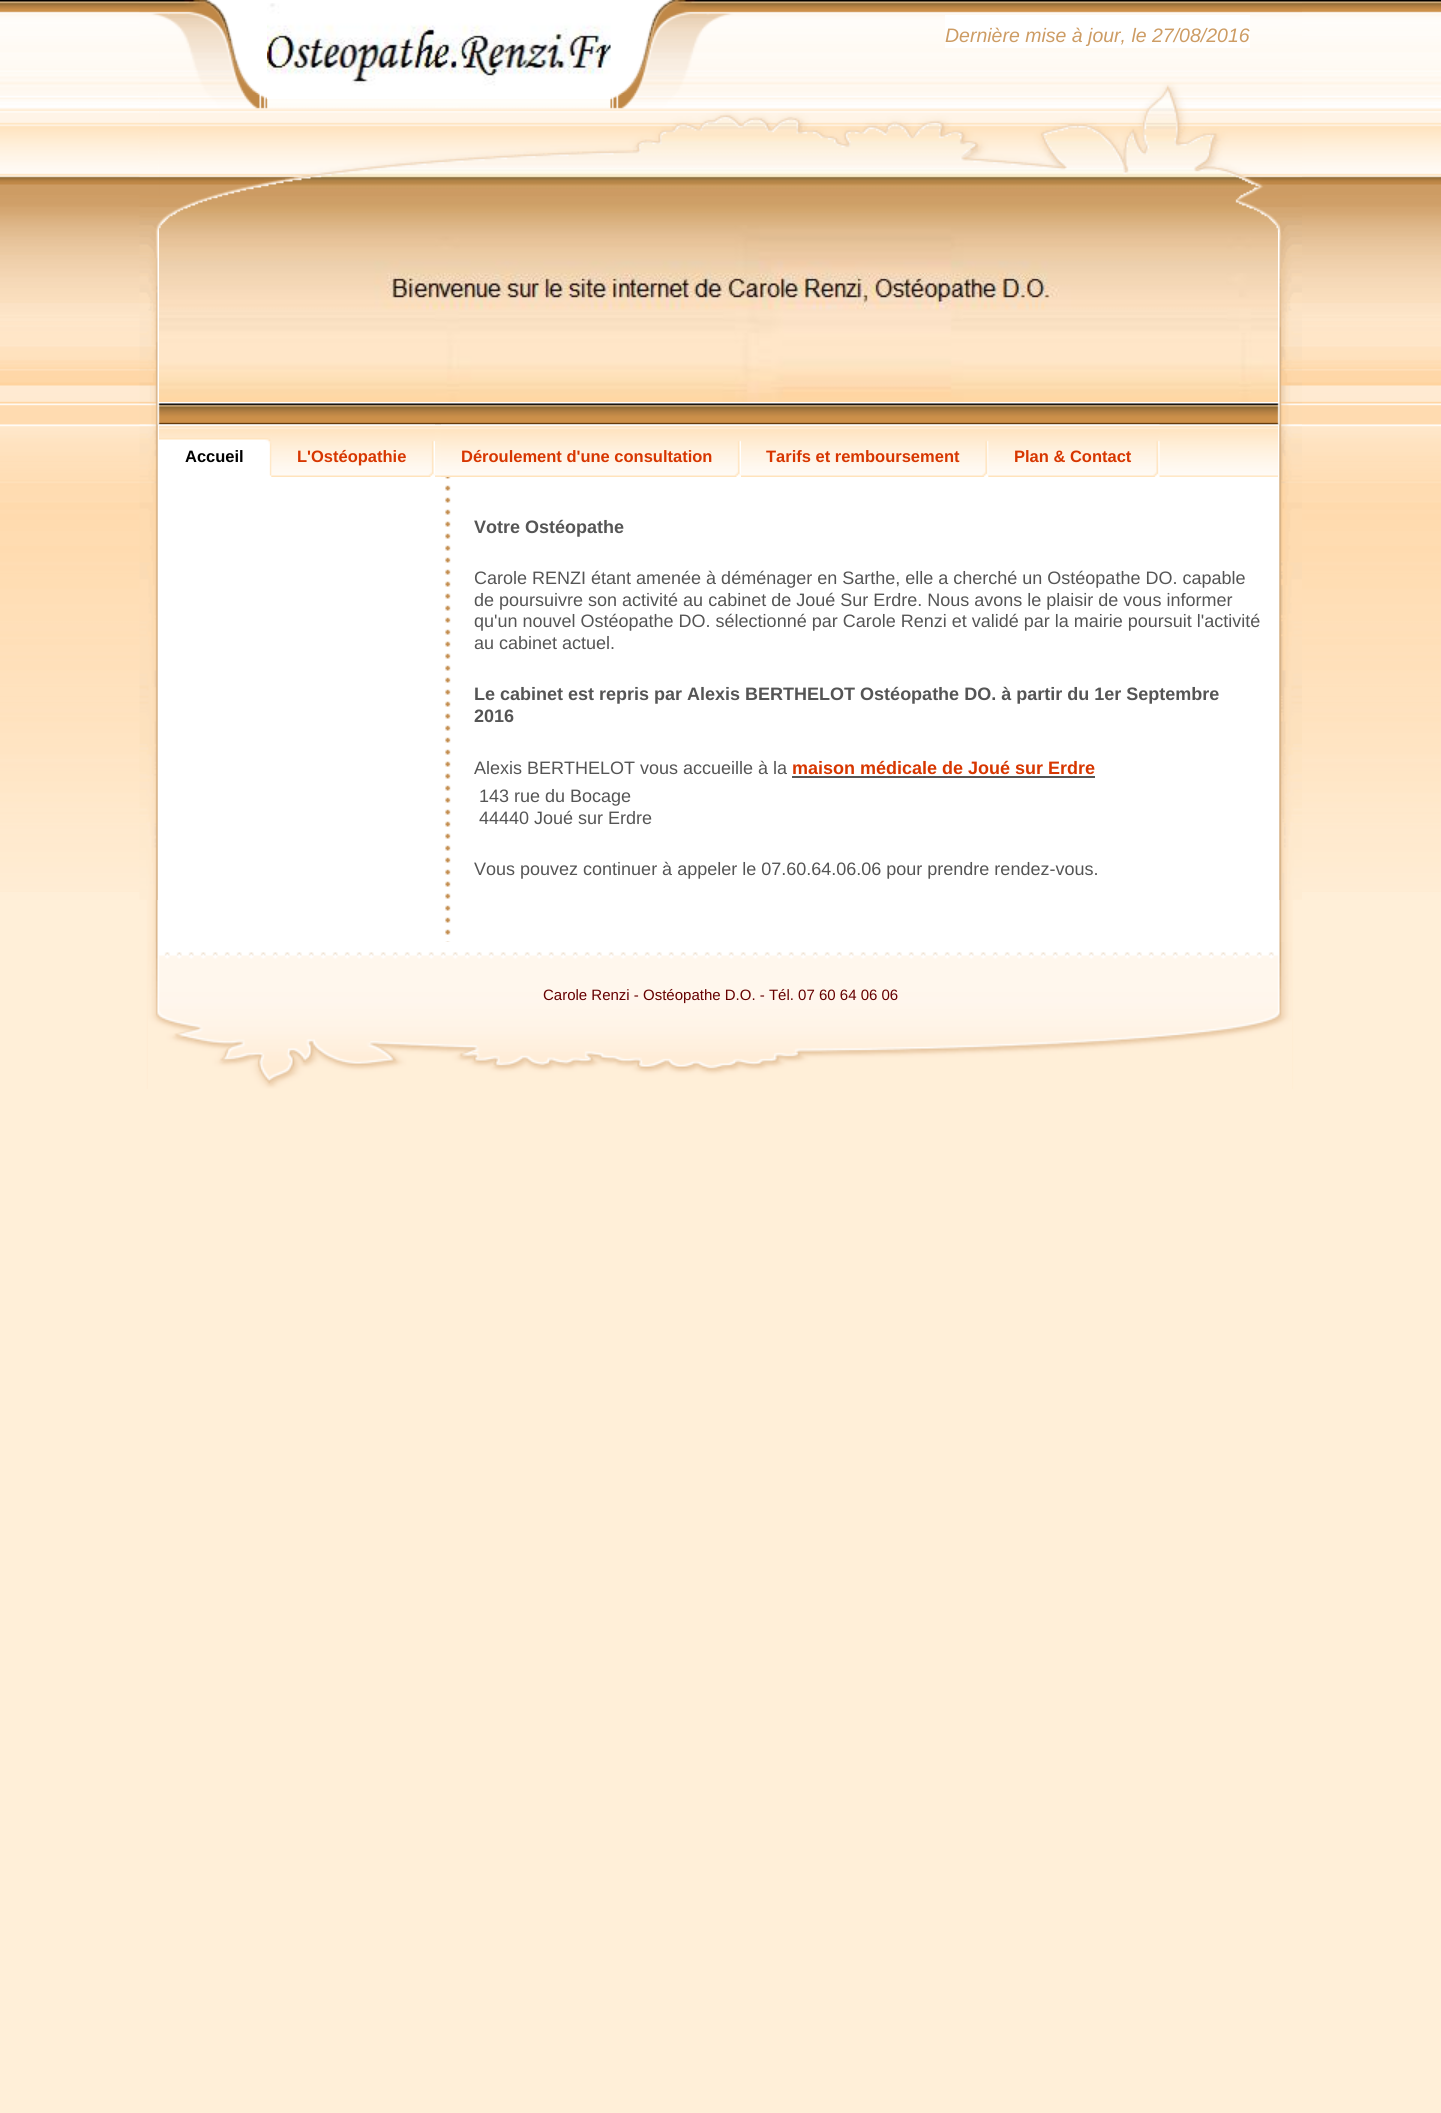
import math
import cairo



def draw_image(context, path, x, y, w, h):
    context.save()
    context.set_source_surface(cairo.ImageSurface.create_from_png(path), x, y)
    context.rectangle(x, y, w, h)
    context.fill()
    context.restore()


def draw(context):
    context.set_source_rgb(1, 239 / 255, 216 / 255)
    context.paint()
    draw_image(context, "images/1.png", 0, 0, 1441, 892)
    draw_image(context, "images/2.png", 146, 424, 1148, 665)
    draw_image(context, "images/3.png", 139, 0, 1163, 425)
    draw_image(context, "images/6.png", 159, 93, 1119, 309)
    draw_image(context, "images/5.png", 158, 93, 1122, 140)
    draw_image(context, "images/4.png", 267, 3, 344, 96)
    context.set_source_rgb(1, 1, 1)
    context.rectangle(945, 15, 305, 33)
    context.fill()
    draw_image(context, "images/7.png", 139, 424, 1163, 476)
    draw_image(context, "images/8.png", 159, 424, 1119, 53)
    draw_image(context, "images/9.png", 159, 424, 113, 53)
    draw_image(context, "images/10.png", 271, 424, 164, 53)
    draw_image(context, "images/11.png", 441, 424, 300, 53)
    draw_image(context, "images/12.png", 741, 424, 248, 53)
    draw_image(context, "images/13.png", 988, 424, 172, 53)
    context.set_source_rgb(85 / 255, 85 / 255, 85 / 255)
    context.rectangle(792, 776, 303, 2)
    context.fill()
    draw_image(context, "images/14.png", 148, 942, 1144, 147)
    context.select_font_face("Liberation Sans", cairo.FontSlant.ITALIC)
    context.set_font_size(19.5)
    context.set_source_rgb(205 / 255, 156 / 255, 100 / 255)
    context.move_to(945, 42)
    context.show_text("Dernière mise à jour, le 27/08/2016")
    context.select_font_face("Liberation Sans", cairo.FontSlant.NORMAL, cairo.FontWeight.BOLD)
    context.set_font_size(16.5)
    context.set_source_rgb(0, 0, 0)
    context.move_to(185, 462)
    context.show_text("Accueil")
    context.set_source_rgb(215 / 255, 54 / 255, 0)
    context.move_to(297, 462)
    context.show_text("L'Ostéopathie")
    context.move_to(461, 462)
    context.show_text("Déroulement d'une consultation")
    context.move_to(766, 462)
    context.show_text("Tarifs et remboursement")
    context.move_to(1014, 462)
    context.show_text("Plan & Contact")
    context.set_font_size(18)
    context.set_source_rgb(85 / 255, 85 / 255, 85 / 255)
    context.move_to(474, 533)
    context.show_text("Votre Ostéopathe")
    context.select_font_face("Liberation Sans")
    context.move_to(474, 584)
    context.show_text("Carole RENZI étant amenée à déménager en Sarthe, elle a cherché un Ostéopathe DO. capable")
    context.move_to(474, 606)
    context.show_text("de poursuivre son activité au cabinet de Joué Sur Erdre. Nous avons le plaisir de vous informer")
    context.move_to(474, 627)
    context.show_text("qu'un nouvel Ostéopathe DO. sélectionné par Carole Renzi et validé par la mairie poursuit l'activité")
    context.move_to(474, 649)
    context.show_text("au cabinet actuel.")
    context.select_font_face("Liberation Sans", cairo.FontSlant.NORMAL, cairo.FontWeight.BOLD)
    context.move_to(474, 700)
    context.show_text("Le cabinet est repris par Alexis BERTHELOT Ostéopathe DO. à partir du 1er Septembre")
    context.move_to(474, 722)
    context.show_text("2016")
    context.select_font_face("Liberation Sans")
    context.move_to(474, 774)
    context.show_text("Alexis BERTHELOT vous accueille à la")
    context.select_font_face("Liberation Sans", cairo.FontSlant.NORMAL, cairo.FontWeight.BOLD)
    context.set_source_rgb(215 / 255, 54 / 255, 0)
    context.move_to(792, 774)
    context.show_text("maison médicale de Joué sur Erdre")
    context.select_font_face("Liberation Sans")
    context.set_source_rgb(85 / 255, 85 / 255, 85 / 255)
    context.move_to(479, 802)
    context.show_text("143 rue du Bocage")
    context.move_to(479, 824)
    context.show_text("44440 Joué sur Erdre")
    context.move_to(474, 875)
    context.show_text("Vous pouvez continuer à appeler le 07.60.64.06.06 pour prendre rendez-vous.")
    context.set_font_size(15)
    context.set_source_rgb(102 / 255, 0, 0)
    context.move_to(543, 1000)
    context.show_text("Carole Renzi - Ostéopathe D.O. - Tél. 07 60 64 06 06")


surface = cairo.ImageSurface(cairo.Format.RGB24, 1441, 2113)
context = cairo.Context(surface)
options = cairo.FontOptions()
options.set_hint_metrics(cairo.HintMetrics.OFF)
options.set_hint_style(cairo.HintStyle.NONE)
context.set_font_options(options)
context.set_miter_limit(4)
draw(context)
surface.write_to_png("out.png")
